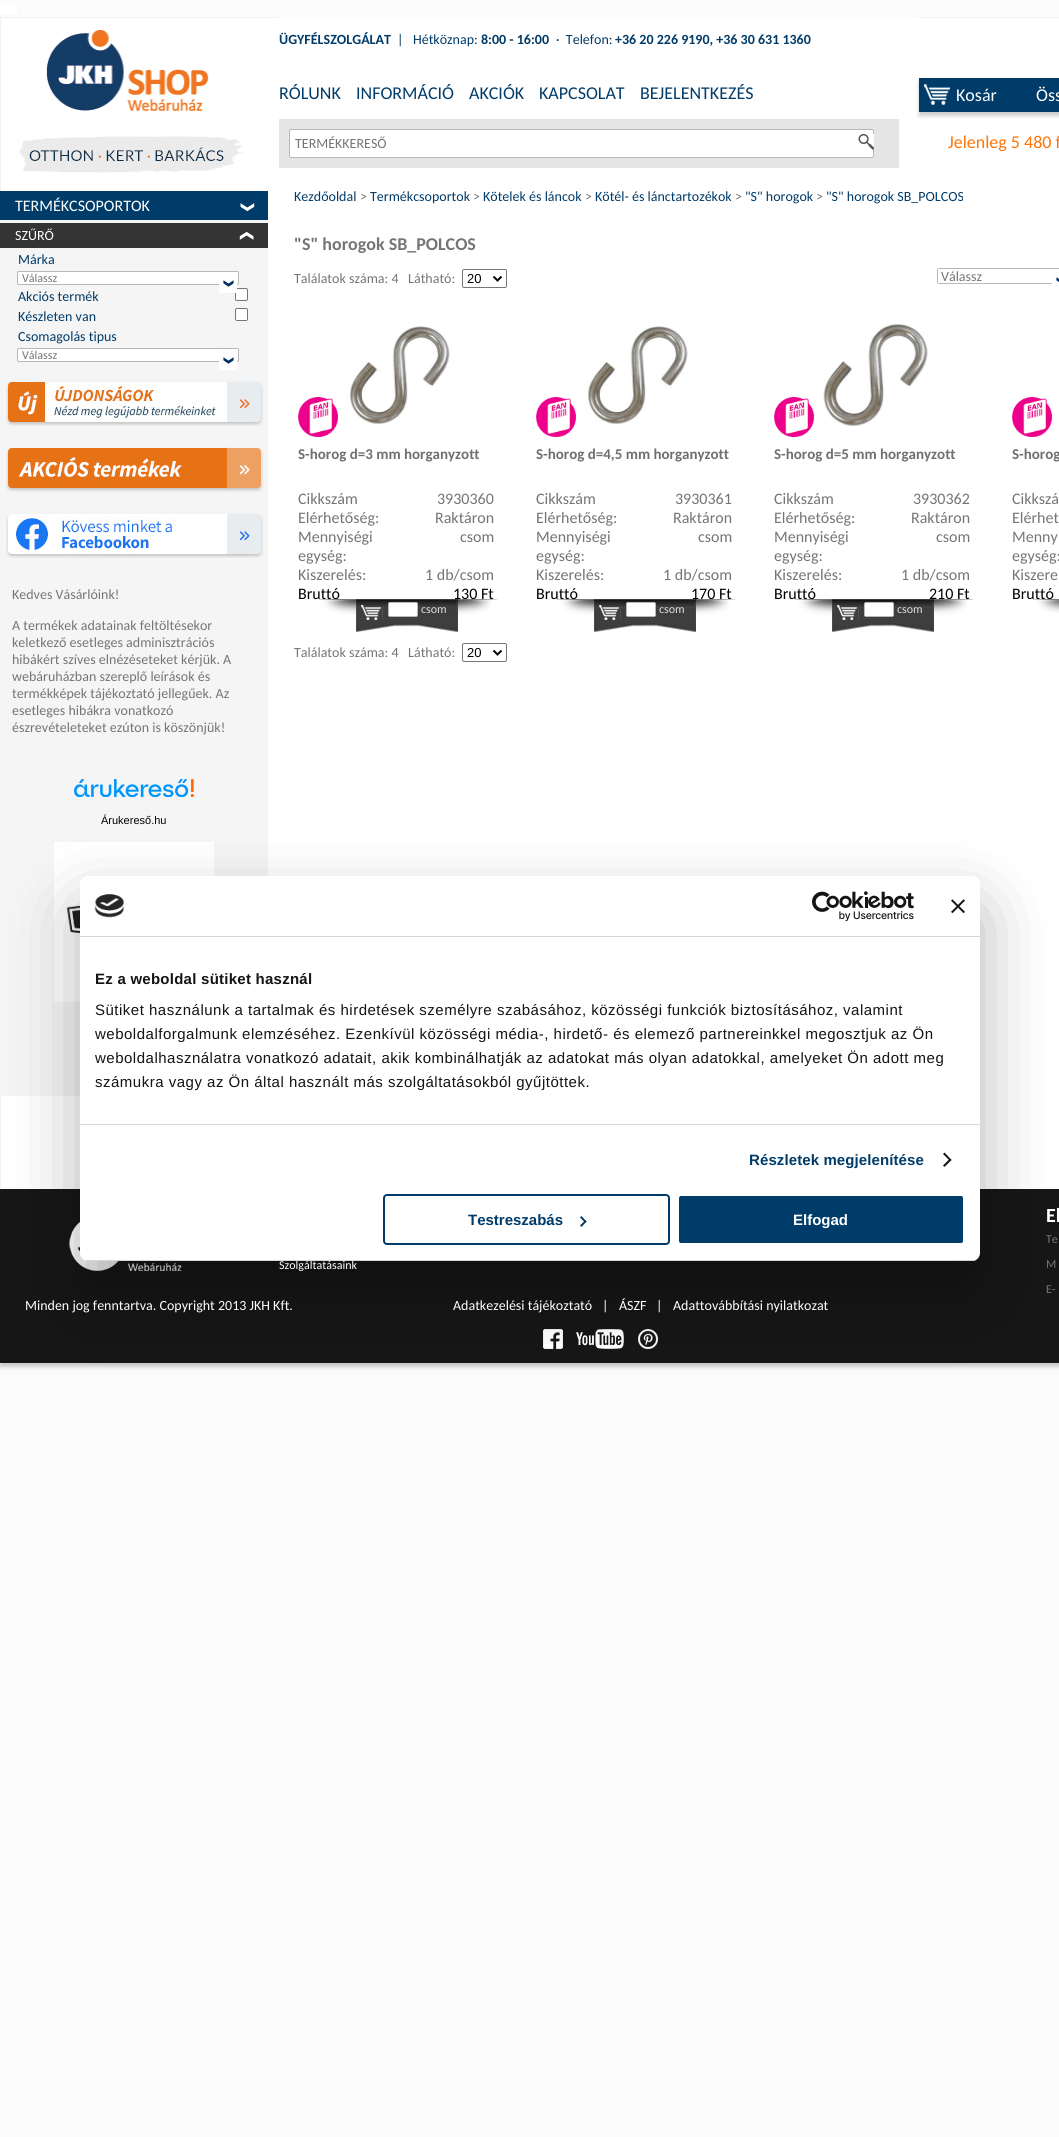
import math
import cairo



def draw_spaced(context, x, y, s, letter, word):
    context.move_to(x, y)
    for ch in s:
        context.show_text(ch)
        context.rel_move_to(letter + word * (ch == ' '), 0)


def rounded_rect(context, x, y, w, h, r):
    context.new_sub_path()
    for i, (u, v) in enumerate([(x + w - r, y + h - r), (x + r, y + h - r), (x + r, y + r), (x + w - r, y + r)]):
        context.arc(u, v, r, i * math.pi / 2, (i + 1) * math.pi / 2)
    context.close_path()


def draw_shadow(context, x, y, w, h, r, blur, alpha):
    context.push_group_with_content(cairo.Content.ALPHA)
    context.set_operator(cairo.Operator.SOURCE)
    for i in range(15, -16, -2):
        e = blur * i / 6
        if min(w, h) + 2 * e > 0:
            context.set_source_rgba(0, 0, 0, alpha * math.erfc((i - 1) / 8.5) / 2)
            rounded_rect(context, x - e, y - e, w + 2 * e, h + 2 * e, max(0, min(r + e + blur * .6, min(w, h) / 2 + e)))
            context.fill()
    context.mask(context.pop_group())


def draw_image(context, path, x, y, w, h):
    context.save()
    context.set_source_surface(cairo.ImageSurface.create_from_png(path), x, y)
    context.rectangle(x, y, w, h)
    context.fill()
    context.restore()


def draw(context):
    context.set_source_rgb(251 / 255, 251 / 255, 251 / 255)
    context.paint()
    context.set_source_rgb(1, 1, 1)
    context.rectangle(0, 3, 17, 11)
    context.fill()
    context.set_source_rgb(0, 0, 0)
    draw_shadow(context, 0, 21, 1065, 1346, 0, 2, 0.2)
    context.set_source_rgb(1, 1, 1)
    context.rectangle(1, 18, 1058, 1171)
    context.fill()
    context.save()
    context.rectangle(0, 17, 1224, 1346)
    context.clip()
    context.set_source_rgb(242 / 255, 242 / 255, 242 / 255)
    context.set_fill_rule(cairo.FillRule.EVEN_ODD)
    context.new_path()
    context.move_to(-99, -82)
    context.line_to(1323, -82)
    context.line_to(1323, 1462)
    context.line_to(-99, 1462)
    context.close_path()
    context.move_to(1, 18)
    context.line_to(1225, 18)
    context.line_to(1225, 1364)
    context.line_to(1, 1364)
    context.close_path()
    context.fill()
    context.restore()
    draw_image(context, "images/1.png", 46, 30, 163, 81)
    draw_image(context, "images/2.png", 19, 136, 225, 37)
    context.rectangle(279, 17, 640, 1)
    context.fill()
    context.set_source_rgb(0, 0, 0)
    draw_shadow(context, 919, 82, 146, 34, 0, 2, 0.2)
    context.set_source_rgb(0, 60 / 255, 105 / 255)
    context.rectangle(920, 79, 139, 33)
    context.fill()
    context.save()
    context.rectangle(919, 78, 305, 34)
    context.clip()
    context.set_source_rgb(0, 57 / 255, 100 / 255)
    context.set_fill_rule(cairo.FillRule.EVEN_ODD)
    context.new_path()
    context.move_to(820, -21)
    context.line_to(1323, -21)
    context.line_to(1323, 211)
    context.line_to(820, 211)
    context.close_path()
    context.move_to(920, 79)
    context.line_to(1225, 79)
    context.line_to(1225, 113)
    context.line_to(920, 113)
    context.close_path()
    context.fill()
    context.restore()
    draw_image(context, "images/3.png", 924, 84, 26, 21)
    context.set_source_rgb(229 / 255, 229 / 255, 229 / 255)
    context.rectangle(279, 119, 620, 49)
    context.fill()
    context.set_source_rgb(1, 1, 1)
    rounded_rect(context, 289.5, 129.5, 584, 28, 1.5)
    context.fill_preserve()
    context.set_source_rgb(184 / 255, 184 / 255, 184 / 255)
    context.set_line_width(1)
    context.stroke()
    draw_image(context, "images/4.png", 858, 134, 16, 16)
    context.set_source_rgb(0, 60 / 255, 105 / 255)
    context.rectangle(0, 191, 268, 29)
    context.fill()
    draw_image(context, "images/5.png", 240, 203, 15, 9)
    rounded_rect(context, 462.5, 269.5, 44, 18, 1.5)
    context.set_source_rgb(118 / 255, 118 / 255, 118 / 255)
    context.stroke()
    context.new_path()
    context.move_to(493.5, 276.5)
    context.line_to(497.5, 280.5)
    context.line_to(501.5, 276.5)
    context.set_source_rgb(0, 0, 0)
    context.set_line_width(2)
    context.stroke()
    rounded_rect(context, 937.5, 268.5, 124, 15, 1.5)
    context.set_source_rgb(184 / 255, 184 / 255, 184 / 255)
    context.set_line_width(1)
    context.stroke()
    draw_image(context, "images/6.png", 1052, 270, 7, 16)
    draw_image(context, "images/7.png", 298, 397, 40, 40)
    draw_image(context, "images/8.png", 346, 326, 104, 98)
    draw_image(context, "images/9.png", 319, 599, 178, 33)
    draw_image(context, "images/10.png", 361, 605, 22, 16)
    context.set_source_rgb(1, 1, 1)
    rounded_rect(context, 388.5, 602.5, 29, 14, 1.5)
    context.fill_preserve()
    context.set_source_rgb(184 / 255, 184 / 255, 184 / 255)
    context.stroke()
    draw_image(context, "images/7.png", 536, 397, 40, 40)
    draw_image(context, "images/8.png", 584, 326, 104, 98)
    draw_image(context, "images/9.png", 557, 599, 178, 33)
    draw_image(context, "images/10.png", 599, 605, 22, 16)
    context.set_source_rgb(1, 1, 1)
    rounded_rect(context, 626.5, 602.5, 29, 14, 1.5)
    context.fill_preserve()
    context.set_source_rgb(184 / 255, 184 / 255, 184 / 255)
    context.stroke()
    draw_image(context, "images/7.png", 774, 397, 40, 40)
    draw_image(context, "images/11.png", 823, 324, 105, 103)
    draw_image(context, "images/9.png", 795, 599, 178, 33)
    draw_image(context, "images/10.png", 837, 605, 22, 16)
    context.set_source_rgb(1, 1, 1)
    rounded_rect(context, 864.5, 602.5, 29, 14, 1.5)
    context.fill_preserve()
    context.set_source_rgb(184 / 255, 184 / 255, 184 / 255)
    context.stroke()
    draw_image(context, "images/7.png", 1012, 397, 40, 40)
    draw_image(context, "images/12.png", 1033, 599, 26, 14)
    rounded_rect(context, 462.5, 643.5, 44, 18, 1.5)
    context.set_source_rgb(118 / 255, 118 / 255, 118 / 255)
    context.stroke()
    context.new_path()
    context.move_to(493.5, 650.5)
    context.line_to(497.5, 654.5)
    context.line_to(501.5, 650.5)
    context.set_source_rgb(0, 0, 0)
    context.set_line_width(2)
    context.stroke()
    context.set_source_rgb(245 / 255, 245 / 255, 245 / 255)
    context.rectangle(0, 220, 268, 876)
    context.fill()
    context.set_source_rgb(52 / 255, 52 / 255, 52 / 255)
    context.rectangle(0, 223, 268, 25)
    context.fill()
    draw_image(context, "images/13.png", 239, 231, 15, 9)
    context.set_source_rgb(1, 1, 1)
    rounded_rect(context, 17.5, 271.5, 221, 13, 1.5)
    context.fill_preserve()
    context.set_source_rgb(184 / 255, 184 / 255, 184 / 255)
    context.set_line_width(1)
    context.stroke()
    context.set_source_rgb(1, 1, 1)
    rounded_rect(context, 235.5, 288.5, 12, 12, 1.5)
    context.fill_preserve()
    context.set_source_rgb(118 / 255, 118 / 255, 118 / 255)
    context.stroke()
    draw_image(context, "images/14.png", 219, 273, 18, 20)
    context.set_source_rgb(1, 1, 1)
    rounded_rect(context, 235.5, 308.5, 12, 12, 1.5)
    context.fill_preserve()
    context.set_source_rgb(118 / 255, 118 / 255, 118 / 255)
    context.stroke()
    context.set_source_rgb(1, 1, 1)
    rounded_rect(context, 17.5, 348.5, 221, 13, 1.5)
    context.fill_preserve()
    context.set_source_rgb(184 / 255, 184 / 255, 184 / 255)
    context.stroke()
    draw_image(context, "images/14.png", 219, 350, 18, 20)
    draw_image(context, "images/15.png", 6, 376, 258, 50)
    draw_image(context, "images/16.png", 6, 442, 258, 50)
    draw_image(context, "images/17.png", 6, 513, 258, 45)
    draw_image(context, "images/18.png", 74, 779, 120, 18)
    draw_image(context, "images/19.png", 54, 842, 160, 160)
    context.set_source_rgb(22 / 255, 22 / 255, 22 / 255)
    context.rectangle(0, 1189, 1059, 174)
    context.fill()
    draw_image(context, "images/20.png", 69, 1222, 113, 49)
    draw_image(context, "images/21.png", 543, 1329, 20, 20)
    draw_image(context, "images/22.png", 576, 1329, 48, 20)
    draw_image(context, "images/23.png", 638, 1329, 20, 20)
    context.set_source_rgb(0, 0, 0)
    draw_shadow(context, 80, 908, 900, 385, 8, 34, 0.3)
    context.set_source_rgb(1, 1, 1)
    rounded_rect(context, 80, 876, 900, 385, 8)
    context.fill()
    context.set_source_rgb(214 / 255, 214 / 255, 214 / 255)
    context.rectangle(80, 936, 900, 1)
    context.fill()
    draw_image(context, "images/24.png", 94, 894, 30, 24)
    draw_image(context, "images/25.png", 812, 891, 102, 30)
    draw_image(context, "images/26.png", 951, 899, 14, 14)
    context.rectangle(80, 1124, 900, 1)
    context.fill()
    context.set_source_rgb(20 / 255, 20 / 255, 20 / 255)
    context.new_path()
    context.move_to(944.5, 1152.5)
    context.line_to(951.5, 1160)
    context.line_to(950, 1161)
    context.line_to(943, 1154)
    context.close_path()
    context.fill()
    context.new_path()
    context.move_to(950, 1158.5)
    context.line_to(951.5, 1160)
    context.line_to(944.5, 1167)
    context.line_to(943, 1165.5)
    context.close_path()
    context.fill()
    rounded_rect(context, 384, 1195, 285, 49, 3)
    context.set_source_rgb(0, 60 / 255, 105 / 255)
    context.set_line_width(2)
    context.stroke()
    context.new_path()
    context.move_to(581.5, 1216)
    context.line_to(586.5, 1221.5)
    context.line_to(585.5, 1223)
    context.line_to(580, 1217.5)
    context.close_path()
    context.fill()
    context.new_path()
    context.move_to(585.5, 1220)
    context.line_to(586.5, 1221.5)
    context.line_to(581.5, 1227)
    context.line_to(580, 1225.5)
    context.close_path()
    context.fill()
    rounded_rect(context, 678, 1195, 286, 49, 3)
    context.fill_preserve()
    context.set_source_rgb(1, 1, 1)
    context.stroke()
    context.select_font_face("Carlito", cairo.FontSlant.NORMAL, cairo.FontWeight.BOLD)
    context.set_font_size(14)
    context.set_source_rgb(0, 59 / 255, 105 / 255)
    context.move_to(279, 44)
    context.show_text("ÜGYFÉLSZOLGÁLAT")
    context.select_font_face("Carlito")
    context.move_to(397, 44)
    context.show_text("|   Hétköznap:")
    context.select_font_face("Carlito", cairo.FontSlant.NORMAL, cairo.FontWeight.BOLD)
    context.move_to(481, 44)
    context.show_text("8:00 - 16:00")
    context.select_font_face("Carlito")
    context.move_to(556, 44)
    context.show_text("·  Telefon:")
    context.select_font_face("Carlito", cairo.FontSlant.NORMAL, cairo.FontWeight.BOLD)
    context.move_to(615, 44)
    context.show_text("+36 20 226 9190, +36 30 631 1360")
    context.select_font_face("Carlito")
    context.set_font_size(18)
    context.move_to(279, 99)
    context.show_text("RÓLUNK")
    context.move_to(356, 99)
    context.show_text("INFORMÁCIÓ")
    context.move_to(469, 99)
    context.show_text("AKCIÓK")
    context.move_to(539, 99)
    context.show_text("KAPCSOLAT")
    context.move_to(640, 99)
    context.show_text("BEJELENTKEZÉS")
    context.set_source_rgb(1, 1, 1)
    context.move_to(956, 101)
    context.show_text("Kosár")
    context.move_to(1036, 101)
    context.show_text("Öss")
    context.set_font_size(14)
    context.set_source_rgb(117 / 255, 117 / 255, 117 / 255)
    context.move_to(295, 148)
    context.show_text("TERMÉKKERESŐ")
    context.set_font_size(18)
    context.set_source_rgb(1, 117 / 255, 4 / 255)
    context.move_to(948, 148)
    context.show_text("Jelenleg 5 480 f")
    context.set_font_size(16)
    context.set_source_rgb(1, 1, 1)
    context.move_to(15, 211)
    context.show_text("TERMÉKCSOPORTOK")
    context.set_font_size(14)
    context.set_source_rgb(0, 59 / 255, 105 / 255)
    context.move_to(294, 201)
    context.show_text("Kezdőoldal")
    context.set_source_rgb(117 / 255, 117 / 255, 117 / 255)
    context.move_to(360, 201)
    context.show_text(">")
    context.set_source_rgb(0, 59 / 255, 105 / 255)
    context.move_to(370, 201)
    context.show_text("Termékcsoportok")
    context.set_source_rgb(117 / 255, 117 / 255, 117 / 255)
    context.move_to(473, 201)
    context.show_text(">")
    context.set_source_rgb(0, 59 / 255, 105 / 255)
    context.move_to(483, 201)
    context.show_text("Kötelek és láncok")
    context.set_source_rgb(117 / 255, 117 / 255, 117 / 255)
    context.move_to(585, 201)
    context.show_text(">")
    context.set_source_rgb(0, 59 / 255, 105 / 255)
    context.move_to(595, 201)
    context.show_text("Kötél- és lánctartozékok")
    context.set_source_rgb(117 / 255, 117 / 255, 117 / 255)
    context.move_to(735, 201)
    context.show_text(">")
    context.set_source_rgb(0, 59 / 255, 105 / 255)
    context.move_to(745, 201)
    context.show_text("\"S\" horogok")
    context.set_source_rgb(117 / 255, 117 / 255, 117 / 255)
    context.move_to(816, 201)
    context.show_text(">")
    context.set_source_rgb(0, 59 / 255, 105 / 255)
    context.move_to(826, 201)
    context.show_text("\"S\" horogok SB_POLCOS")
    context.select_font_face("Carlito", cairo.FontSlant.NORMAL, cairo.FontWeight.BOLD)
    context.set_font_size(18)
    context.set_source_rgb(117 / 255, 117 / 255, 117 / 255)
    context.move_to(294, 250)
    context.show_text("\"S\" horogok SB_POLCOS")
    context.select_font_face("Carlito")
    context.set_font_size(14)
    context.move_to(294, 283)
    context.show_text("Találatok száma: 4   Látható:")
    context.select_font_face("Liberation Sans")
    context.set_font_size(13)
    context.set_source_rgb(0, 0, 0)
    context.move_to(467, 283)
    context.show_text("20")
    context.select_font_face("Carlito")
    context.set_font_size(14)
    context.set_source_rgb(117 / 255, 117 / 255, 117 / 255)
    context.move_to(941, 281)
    context.show_text("Válassz")
    context.select_font_face("Carlito", cairo.FontSlant.NORMAL, cairo.FontWeight.BOLD)
    context.set_font_size(15)
    context.set_source_rgb(111 / 255, 111 / 255, 111 / 255)
    context.move_to(298, 459)
    context.show_text("S-horog d=3 mm horganyzott")
    context.select_font_face("Carlito")
    context.set_font_size(16)
    context.set_source_rgb(117 / 255, 117 / 255, 117 / 255)
    context.move_to(298, 504)
    context.show_text("Cikkszám")
    context.move_to(437, 504)
    context.show_text("3930360")
    context.move_to(298, 523)
    context.show_text("Elérhetőség:")
    context.move_to(435, 523)
    context.show_text("Raktáron")
    context.move_to(298, 542)
    context.show_text("Mennyiségi")
    context.move_to(298, 561)
    context.show_text("egység:")
    context.move_to(460, 542)
    context.show_text("csom")
    context.move_to(298, 580)
    context.show_text("Kiszerelés:")
    context.move_to(425, 580)
    context.show_text("1 db/csom")
    context.set_source_rgb(0, 0, 0)
    context.move_to(298, 599)
    context.show_text("Bruttó")
    context.move_to(453, 599)
    context.show_text("130 Ft")
    context.set_font_size(12)
    context.set_source_rgb(222 / 255, 222 / 255, 222 / 255)
    context.move_to(421, 613)
    context.show_text("csom")
    context.select_font_face("Carlito", cairo.FontSlant.NORMAL, cairo.FontWeight.BOLD)
    context.set_font_size(15)
    context.set_source_rgb(111 / 255, 111 / 255, 111 / 255)
    context.move_to(536, 459)
    context.show_text("S-horog d=4,5 mm horganyzott")
    context.select_font_face("Carlito")
    context.set_font_size(16)
    context.set_source_rgb(117 / 255, 117 / 255, 117 / 255)
    context.move_to(536, 504)
    context.show_text("Cikkszám")
    context.move_to(675, 504)
    context.show_text("3930361")
    context.move_to(536, 523)
    context.show_text("Elérhetőség:")
    context.move_to(673, 523)
    context.show_text("Raktáron")
    context.move_to(536, 542)
    context.show_text("Mennyiségi")
    context.move_to(536, 561)
    context.show_text("egység:")
    context.move_to(698, 542)
    context.show_text("csom")
    context.move_to(536, 580)
    context.show_text("Kiszerelés:")
    context.move_to(663, 580)
    context.show_text("1 db/csom")
    context.set_source_rgb(0, 0, 0)
    context.move_to(536, 599)
    context.show_text("Bruttó")
    context.move_to(691, 599)
    context.show_text("170 Ft")
    context.set_font_size(12)
    context.set_source_rgb(222 / 255, 222 / 255, 222 / 255)
    context.move_to(659, 613)
    context.show_text("csom")
    context.select_font_face("Carlito", cairo.FontSlant.NORMAL, cairo.FontWeight.BOLD)
    context.set_font_size(15)
    context.set_source_rgb(111 / 255, 111 / 255, 111 / 255)
    context.move_to(774, 459)
    context.show_text("S-horog d=5 mm horganyzott")
    context.select_font_face("Carlito")
    context.set_font_size(16)
    context.set_source_rgb(117 / 255, 117 / 255, 117 / 255)
    context.move_to(774, 504)
    context.show_text("Cikkszám")
    context.move_to(913, 504)
    context.show_text("3930362")
    context.move_to(774, 523)
    context.show_text("Elérhetőség:")
    context.move_to(911, 523)
    context.show_text("Raktáron")
    context.move_to(774, 542)
    context.show_text("Mennyiségi")
    context.move_to(774, 561)
    context.show_text("egység:")
    context.move_to(936, 542)
    context.show_text("csom")
    context.move_to(774, 580)
    context.show_text("Kiszerelés:")
    context.move_to(901, 580)
    context.show_text("1 db/csom")
    context.set_source_rgb(0, 0, 0)
    context.move_to(774, 599)
    context.show_text("Bruttó")
    context.move_to(929, 599)
    context.show_text("210 Ft")
    context.set_font_size(12)
    context.set_source_rgb(222 / 255, 222 / 255, 222 / 255)
    context.move_to(897, 613)
    context.show_text("csom")
    context.select_font_face("Carlito", cairo.FontSlant.NORMAL, cairo.FontWeight.BOLD)
    context.set_font_size(15)
    context.set_source_rgb(111 / 255, 111 / 255, 111 / 255)
    context.move_to(1012, 459)
    context.show_text("S-horog")
    context.select_font_face("Carlito")
    context.set_font_size(16)
    context.set_source_rgb(117 / 255, 117 / 255, 117 / 255)
    context.move_to(1012, 504)
    context.show_text("Cikkszá")
    context.move_to(1012, 523)
    context.show_text("Elérhet")
    context.move_to(1012, 542)
    context.show_text("Menny")
    context.move_to(1012, 561)
    context.show_text("egység:")
    context.move_to(1012, 580)
    context.show_text("Kiszere")
    context.set_source_rgb(0, 0, 0)
    context.move_to(1012, 599)
    context.show_text("Bruttó")
    context.set_font_size(14)
    context.set_source_rgb(117 / 255, 117 / 255, 117 / 255)
    context.move_to(294, 657)
    context.show_text("Találatok száma: 4   Látható:")
    context.select_font_face("Liberation Sans")
    context.set_font_size(13)
    context.set_source_rgb(0, 0, 0)
    context.move_to(467, 657)
    context.show_text("20")
    context.select_font_face("Carlito")
    context.set_font_size(14)
    context.set_source_rgb(1, 1, 1)
    context.move_to(15, 240)
    context.show_text("SZŰRŐ")
    context.set_source_rgb(0, 59 / 255, 105 / 255)
    context.move_to(18, 264)
    context.show_text("Márka")
    context.set_font_size(12)
    context.set_source_rgb(117 / 255, 117 / 255, 117 / 255)
    context.move_to(22, 282)
    context.show_text("Válassz")
    context.set_font_size(14)
    context.set_source_rgb(0, 59 / 255, 105 / 255)
    context.move_to(18, 301)
    context.show_text("Akciós termék")
    context.move_to(18, 321)
    context.show_text("Készleten van")
    context.move_to(18, 341)
    context.show_text("Csomagolás tipus")
    context.set_font_size(12)
    context.set_source_rgb(117 / 255, 117 / 255, 117 / 255)
    context.move_to(22, 359)
    context.show_text("Válassz")
    context.set_font_size(14)
    context.move_to(12, 599)
    context.show_text("Kedves Vásárlóink!")
    context.move_to(12, 630)
    context.show_text("A termékek adatainak feltöltésekor")
    context.move_to(12, 647)
    context.show_text("keletkező esetleges adminisztrációs")
    context.move_to(12, 664)
    context.show_text("hibákért szíves elnézéseteket kérjük. A")
    context.move_to(12, 681)
    context.show_text("webáruházban szereplő leírások és")
    context.move_to(12, 698)
    context.show_text("termékképek tájékoztató jellegűek. Az")
    context.move_to(12, 715)
    context.show_text("esetleges hibákra vonatkozó")
    context.move_to(12, 732)
    context.show_text("észrevételeteket ezúton is köszönjük!")
    context.select_font_face("Liberation Sans")
    context.set_font_size(11)
    context.set_source_rgb(0, 0, 0)
    context.move_to(101, 824)
    context.show_text("Árukereső.hu")
    context.select_font_face("Carlito")
    context.set_font_size(12)
    context.set_source_rgb(1, 1, 1)
    context.move_to(279, 1269)
    context.show_text("Szolgáltatásaink")
    context.set_font_size(14)
    context.move_to(25, 1310)
    context.show_text("Minden jog fenntartva. Copyright 2013 JKH Kft.")
    context.move_to(453, 1310)
    context.show_text("Adatkezelési tájékoztató")
    context.move_to(602, 1310)
    context.show_text("|")
    context.move_to(619, 1310)
    context.show_text("ÁSZF")
    context.move_to(656, 1310)
    context.show_text("|")
    context.move_to(673, 1310)
    context.show_text("Adattovábbítási nyilatkozat")
    context.select_font_face("Carlito", cairo.FontSlant.NORMAL, cairo.FontWeight.BOLD)
    context.set_font_size(20)
    context.move_to(1046, 1222)
    context.show_text("El")
    context.select_font_face("Carlito")
    context.set_font_size(12)
    context.set_source_rgb(117 / 255, 117 / 255, 117 / 255)
    context.move_to(1046, 1243)
    context.show_text("Te")
    context.move_to(1046, 1268)
    context.show_text("M")
    context.move_to(1046, 1293)
    context.show_text("E-")
    context.select_font_face("Liberation Sans", cairo.FontSlant.NORMAL, cairo.FontWeight.BOLD)
    context.set_font_size(15)
    context.set_source_rgb(20 / 255, 20 / 255, 20 / 255)
    draw_spaced(context, 95, 984, "Ez a weboldal sütiket használ", 0.25, 0)
    context.select_font_face("Liberation Sans")
    draw_spaced(context, 95, 1015, "Sütiket használunk a tartalmak és hirdetések személyre szabásához, közösségi funkciók biztosításához, valamint", 0.5, 0)
    draw_spaced(context, 95, 1039, "weboldalforgalmunk elemzéséhez. Ezenkívül közösségi média-, hirdető- és elemező partnereinkkel megosztjuk az Ön", 0.5, 0)
    draw_spaced(context, 95, 1063, "weboldalhasználatra vonatkozó adatait, akik kombinálhatják az adatokat más olyan adatokkal, amelyeket Ön adott meg", 0.5, 0)
    draw_spaced(context, 95, 1087, "számukra vagy az Ön által használt más szolgáltatásokból gyűjtöttek.", 0.5, 0)
    context.select_font_face("Liberation Sans", cairo.FontSlant.NORMAL, cairo.FontWeight.BOLD)
    context.set_source_rgb(0, 59 / 255, 105 / 255)
    draw_spaced(context, 749, 1165, "Részletek megjelenítése", 0.1, 0)
    context.save()
    rounded_rect(context, 80, 876, 900, 385, 8)
    context.clip()
    context.set_source_rgb(214 / 255, 214 / 255, 214 / 255)
    context.rectangle(80, 1260, 900, 1)
    context.fill()
    context.restore()
    context.move_to(468, 1225)
    context.show_text("Testreszabás")
    context.set_source_rgb(1, 1, 1)
    context.move_to(793, 1225)
    context.show_text("Elfogad")


surface = cairo.ImageSurface(cairo.Format.RGB24, 1059, 2137)
context = cairo.Context(surface)
options = cairo.FontOptions()
options.set_hint_metrics(cairo.HintMetrics.OFF)
options.set_hint_style(cairo.HintStyle.NONE)
context.set_font_options(options)
context.set_miter_limit(4)
draw(context)
surface.write_to_png("out.png")
